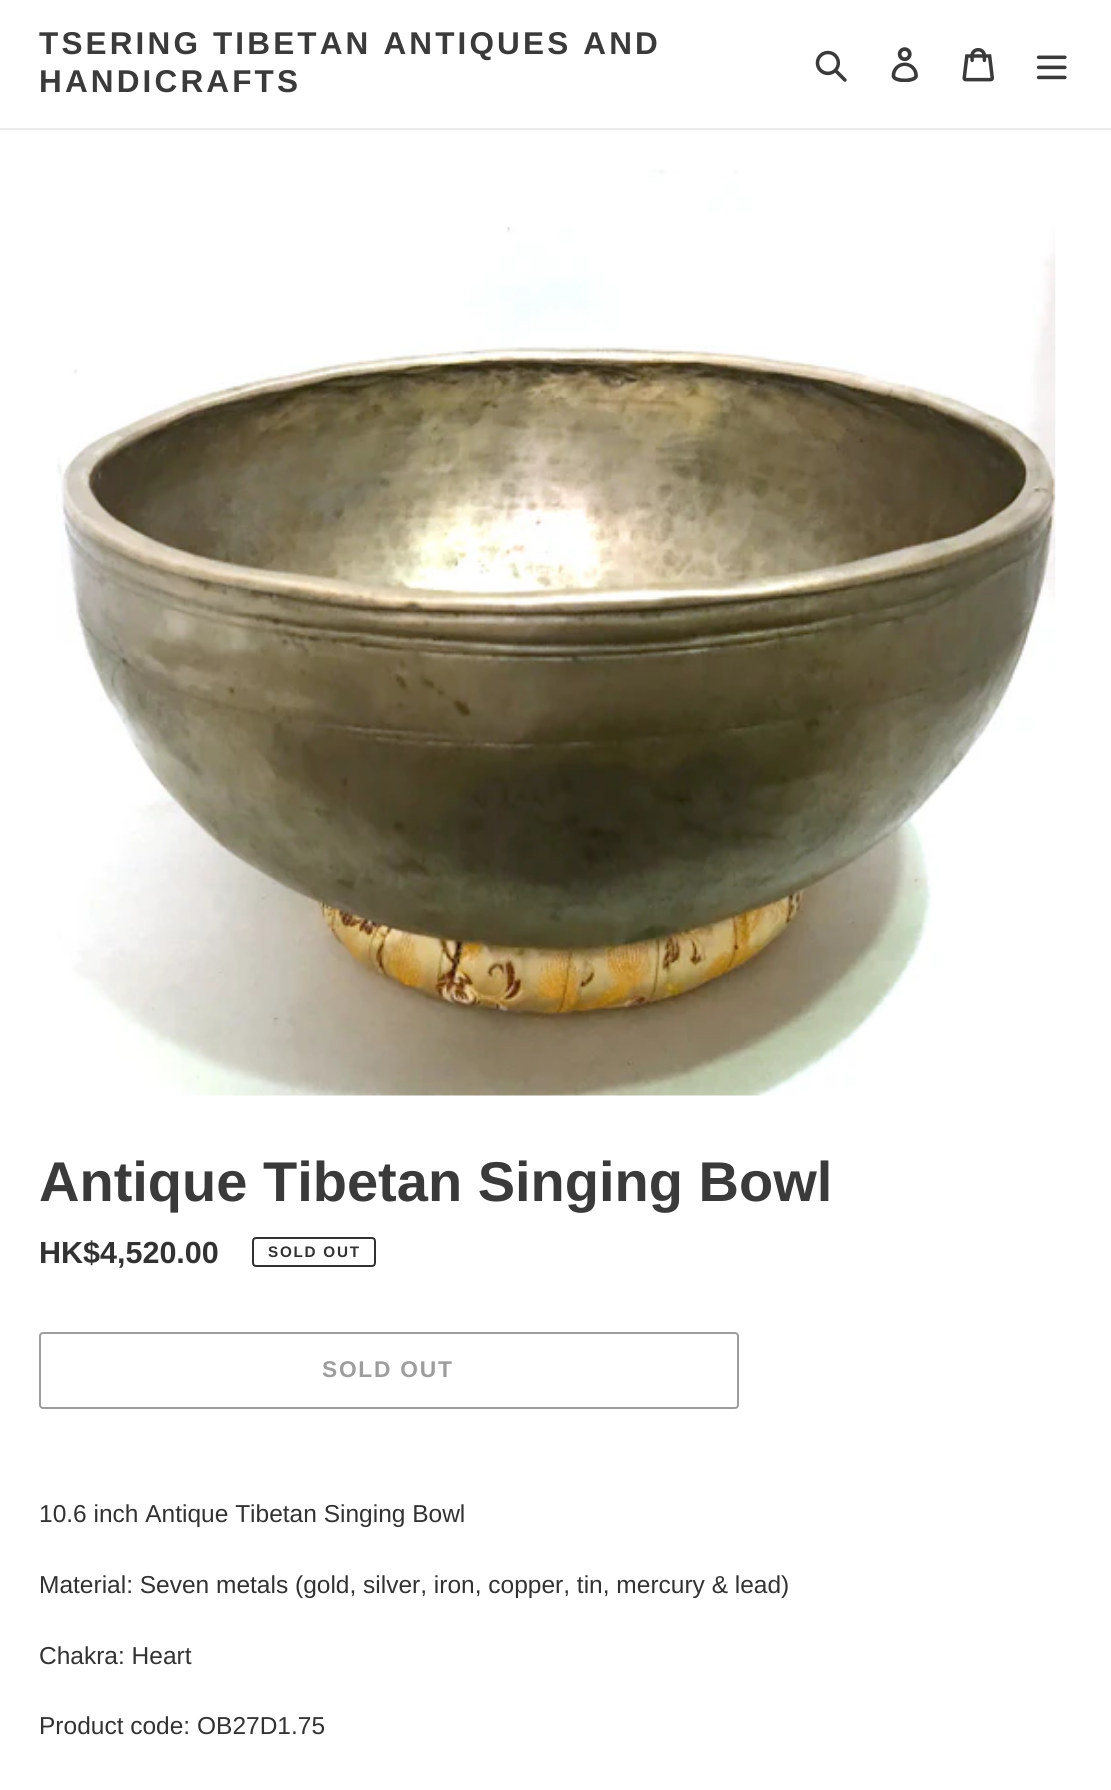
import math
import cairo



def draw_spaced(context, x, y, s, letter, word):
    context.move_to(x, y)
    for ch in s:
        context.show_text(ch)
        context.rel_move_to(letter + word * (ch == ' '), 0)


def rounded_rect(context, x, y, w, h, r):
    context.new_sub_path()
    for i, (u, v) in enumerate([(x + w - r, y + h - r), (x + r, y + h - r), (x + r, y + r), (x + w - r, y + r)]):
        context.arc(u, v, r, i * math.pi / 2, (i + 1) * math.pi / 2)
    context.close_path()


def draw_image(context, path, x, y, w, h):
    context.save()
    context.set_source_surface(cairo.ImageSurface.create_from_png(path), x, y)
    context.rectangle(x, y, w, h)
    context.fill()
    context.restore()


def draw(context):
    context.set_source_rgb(1, 1, 1)
    context.paint()
    context.set_source_rgb(235 / 255, 235 / 255, 235 / 255)
    context.rectangle(0, 128, 1111, 2)
    context.fill()
    draw_image(context, "images/1.png", 815, 50, 32, 32)
    draw_image(context, "images/2.png", 891, 47, 27, 35)
    draw_image(context, "images/3.png", 962, 47, 32, 35)
    draw_image(context, "images/4.png", 1036, 55, 31, 25)
    draw_image(context, "images/5.png", 56, 169, 1000, 927)
    rounded_rect(context, 253, 1238, 122, 28, 3)
    context.set_source_rgb(51 / 255, 50 / 255, 50 / 255)
    context.stroke()
    rounded_rect(context, 40, 1333, 698, 75, 3)
    context.set_source_rgb(157 / 255, 157 / 255, 157 / 255)
    context.stroke()
    context.select_font_face("Liberation Sans", cairo.FontSlant.NORMAL, cairo.FontWeight.BOLD)
    context.set_font_size(31.5)
    context.set_source_rgb(58 / 255, 58 / 255, 58 / 255)
    draw_spaced(context, 39, 54, "TSERING TIBETAN ANTIQUES AND", 3.15, 0)
    draw_spaced(context, 39, 92, "HANDICRAFTS", 3.15, 0)
    context.set_font_size(56)
    context.move_to(39, 1201)
    context.show_text("Antique Tibetan Singing Bowl")
    context.set_font_size(30.5)
    context.set_source_rgb(51 / 255, 50 / 255, 50 / 255)
    context.move_to(39, 1263)
    context.show_text("HK$4,520.00")
    context.set_font_size(15.25)
    draw_spaced(context, 268, 1257, "SOLD OUT", 1.75, 0)
    context.set_font_size(22.75)
    context.set_source_rgb(157 / 255, 157 / 255, 157 / 255)
    draw_spaced(context, 322, 1377, "SOLD OUT", 1.75, 0)
    context.select_font_face("Liberation Sans")
    context.set_font_size(24.5)
    context.set_source_rgb(51 / 255, 50 / 255, 50 / 255)
    context.move_to(39, 1522)
    context.show_text("10.6 inch Antique Tibetan Singing Bowl")
    context.move_to(39, 1593)
    context.show_text("Material: Seven metals (gold, silver, iron, copper, tin, mercury & lead)")
    context.move_to(39, 1664)
    context.show_text("Chakra: Heart")
    context.move_to(39, 1734)
    context.show_text("Product code: OB27D1.75")


surface = cairo.ImageSurface(cairo.Format.RGB24, 1111, 1790)
context = cairo.Context(surface)
options = cairo.FontOptions()
options.set_hint_metrics(cairo.HintMetrics.OFF)
options.set_hint_style(cairo.HintStyle.NONE)
context.set_font_options(options)
context.set_miter_limit(4)
draw(context)
surface.write_to_png("out.png")
